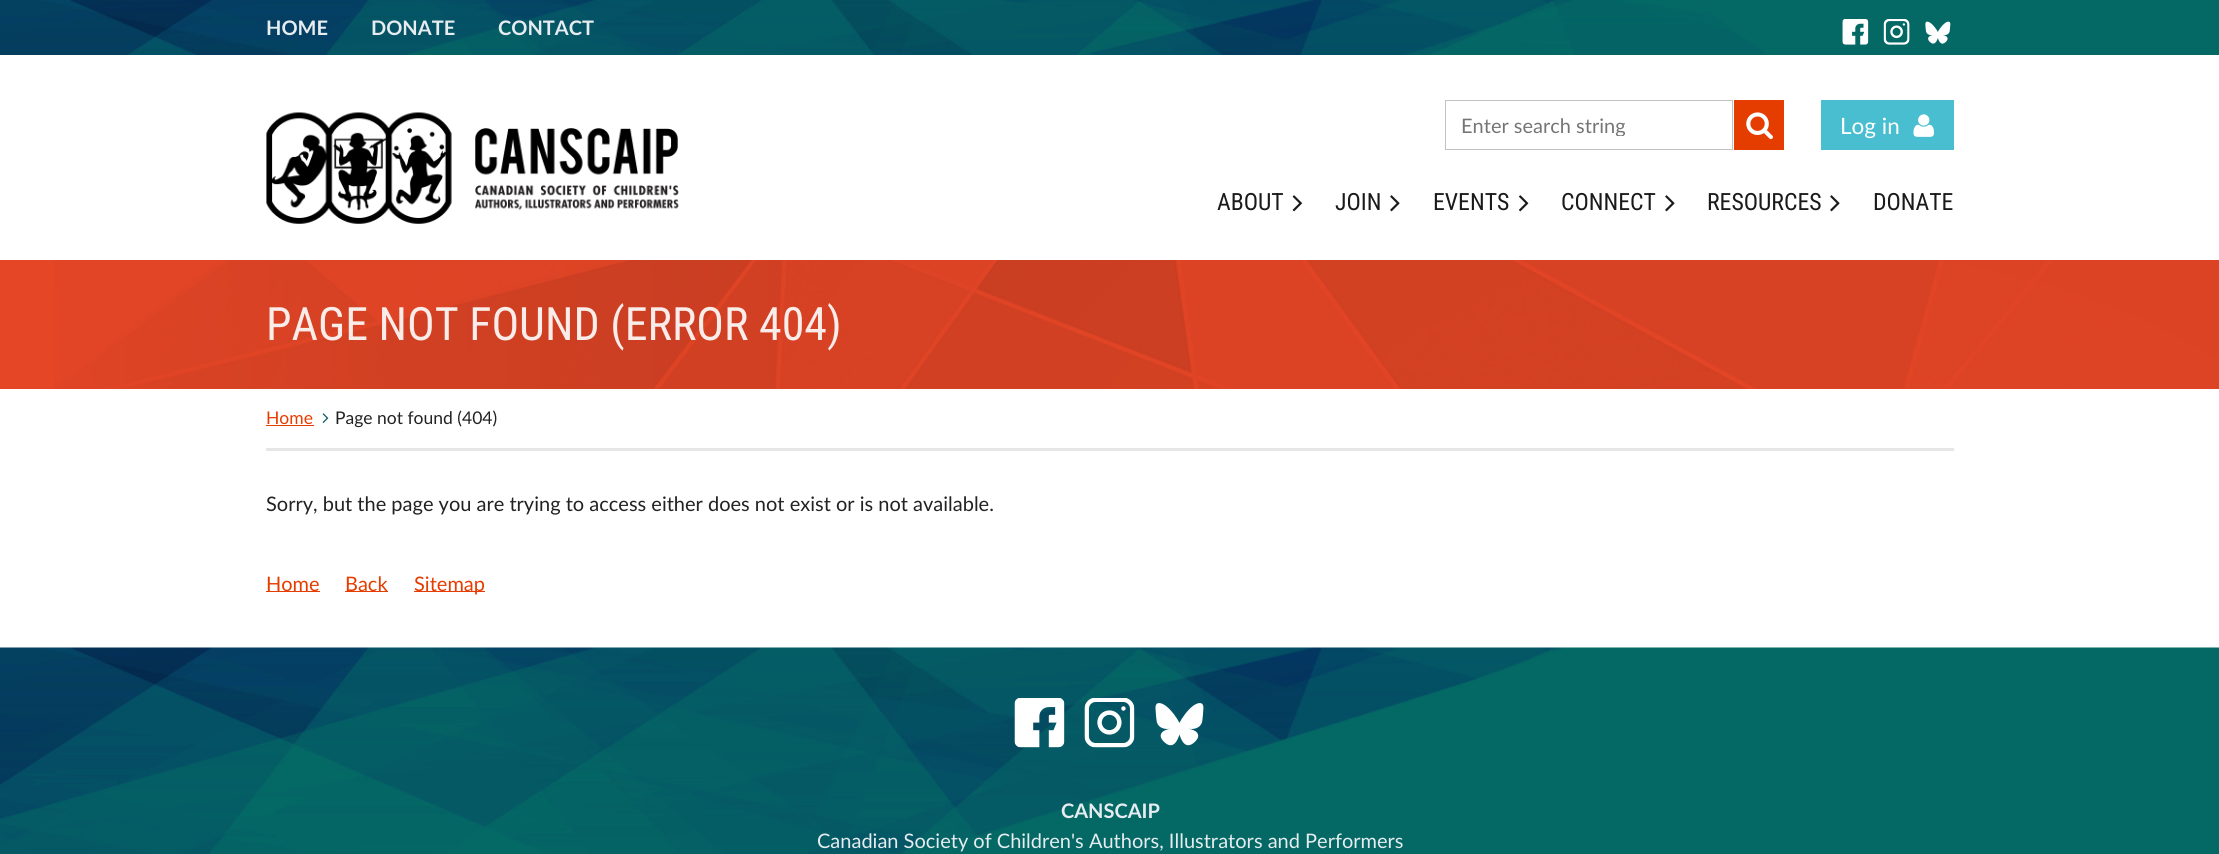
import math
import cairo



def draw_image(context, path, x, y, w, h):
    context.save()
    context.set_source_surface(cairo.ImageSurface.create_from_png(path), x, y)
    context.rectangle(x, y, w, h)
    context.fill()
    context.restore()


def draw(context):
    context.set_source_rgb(1, 1, 1)
    context.paint()
    context.set_source_rgb(4 / 255, 104 / 255, 101 / 255)
    context.rectangle(1766, 0, 453, 55)
    context.fill()
    draw_image(context, "images/1.png", 0, 0, 1766, 55)
    draw_image(context, "images/2.png", 1842, 19, 27, 26)
    draw_image(context, "images/3.png", 1883, 19, 27, 26)
    draw_image(context, "images/4.png", 1925, 21, 26, 23)
    draw_image(context, "images/5.png", 266, 112, 413, 112)
    context.rectangle(1445.5, 100.5, 287, 49)
    context.set_source_rgb(193 / 255, 193 / 255, 193 / 255)
    context.set_line_width(1)
    context.stroke()
    context.set_source_rgb(229 / 255, 61 / 255, 0)
    context.rectangle(1734, 100, 50, 50)
    context.fill()
    draw_image(context, "images/6.png", 1746, 112, 27, 28)
    context.set_source_rgb(72 / 255, 190 / 255, 208 / 255)
    context.rectangle(1821, 100, 133, 50)
    context.fill()
    draw_image(context, "images/7.png", 1913, 114, 21, 23)
    draw_image(context, "images/8.png", 1292, 195, 10, 17)
    draw_image(context, "images/9.png", 1390, 195, 10, 17)
    draw_image(context, "images/10.png", 1519, 195, 10, 17)
    draw_image(context, "images/9.png", 1665, 195, 10, 17)
    draw_image(context, "images/9.png", 1830, 195, 10, 17)
    context.set_source_rgb(229 / 255, 70 / 255, 38 / 255)
    context.rectangle(0, 260, 2219, 129)
    context.fill()
    draw_image(context, "images/11.png", 54, 260, 2165, 129)
    context.set_source_rgb(230 / 255, 230 / 255, 230 / 255)
    context.rectangle(266, 448, 1688, 3)
    context.fill()
    context.set_source_rgb(229 / 255, 61 / 255, 0)
    context.rectangle(266, 425, 48, 1)
    context.fill()
    draw_image(context, "images/12.png", 322, 413, 7, 10)
    context.rectangle(266, 591, 54, 1)
    context.fill()
    context.rectangle(345, 591, 43, 1)
    context.fill()
    context.rectangle(414, 591, 71, 1)
    context.fill()
    draw_image(context, "images/13.png", 0, 647, 2219, 207)
    draw_image(context, "images/14.png", 1014, 698, 51, 50)
    draw_image(context, "images/15.png", 1084, 698, 51, 50)
    draw_image(context, "images/16.png", 1155, 703, 49, 43)
    context.select_font_face("Lato", cairo.FontSlant.NORMAL, cairo.FontWeight.BOLD)
    context.set_font_size(20)
    context.set_source_rgb(230 / 255, 236 / 255, 239 / 255)
    context.move_to(266, 35)
    context.show_text("HOME")
    context.move_to(371, 35)
    context.show_text("DONATE")
    context.move_to(498, 35)
    context.show_text("CONTACT")
    context.save()
    context.rectangle(1461, 113, 255, 23)
    context.clip()
    context.select_font_face("Lato")
    context.set_source_rgb(117 / 255, 117 / 255, 117 / 255)
    context.move_to(1461, 133)
    context.show_text("Enter search string")
    context.restore()
    context.select_font_face("Lato")
    context.set_font_size(22.5)
    context.set_source_rgb(1, 1, 1)
    context.move_to(1840, 134)
    context.show_text("Log in")
    context.select_font_face("Roboto Condensed")
    context.set_font_size(23.75)
    context.set_source_rgb(26 / 255, 26 / 255, 26 / 255)
    context.move_to(1217, 210)
    context.show_text("ABOUT")
    context.move_to(1335, 210)
    context.show_text("JOIN")
    context.move_to(1433, 210)
    context.show_text("EVENTS")
    context.move_to(1561, 210)
    context.show_text("CONNECT")
    context.move_to(1707, 210)
    context.show_text("RESOURCES")
    context.move_to(1873, 210)
    context.show_text("DONATE")
    context.set_font_size(46)
    context.set_source_rgb(250 / 255, 236 / 255, 233 / 255)
    context.move_to(266, 340)
    context.show_text("PAGE NOT FOUND (ERROR 404)")
    context.select_font_face("Lato")
    context.set_font_size(17.5)
    context.set_source_rgb(229 / 255, 61 / 255, 0)
    context.move_to(266, 424)
    context.show_text("Home")
    context.set_source_rgb(34 / 255, 34 / 255, 34 / 255)
    context.move_to(335, 424)
    context.show_text("Page not found (404)")
    context.set_font_size(20)
    context.move_to(266, 511)
    context.show_text("Sorry, but the page you are trying to access either does not exist or is not available.")
    context.set_source_rgb(229 / 255, 61 / 255, 0)
    context.move_to(266, 591)
    context.show_text("Home")
    context.move_to(345, 591)
    context.show_text("Back")
    context.move_to(414, 591)
    context.show_text("Sitemap")
    context.select_font_face("Lato", cairo.FontSlant.NORMAL, cairo.FontWeight.BOLD)
    context.set_source_rgb(230 / 255, 236 / 255, 239 / 255)
    context.move_to(1061, 818)
    context.show_text("CANSCAIP")
    context.select_font_face("Lato")
    context.move_to(817, 848)
    context.show_text("Canadian Society of Children's Authors, Illustrators and Performers")


surface = cairo.ImageSurface(cairo.Format.RGB24, 2219, 854)
context = cairo.Context(surface)
options = cairo.FontOptions()
options.set_hint_metrics(cairo.HintMetrics.OFF)
options.set_hint_style(cairo.HintStyle.NONE)
context.set_font_options(options)
context.set_miter_limit(4)
draw(context)
surface.write_to_png("out.png")
